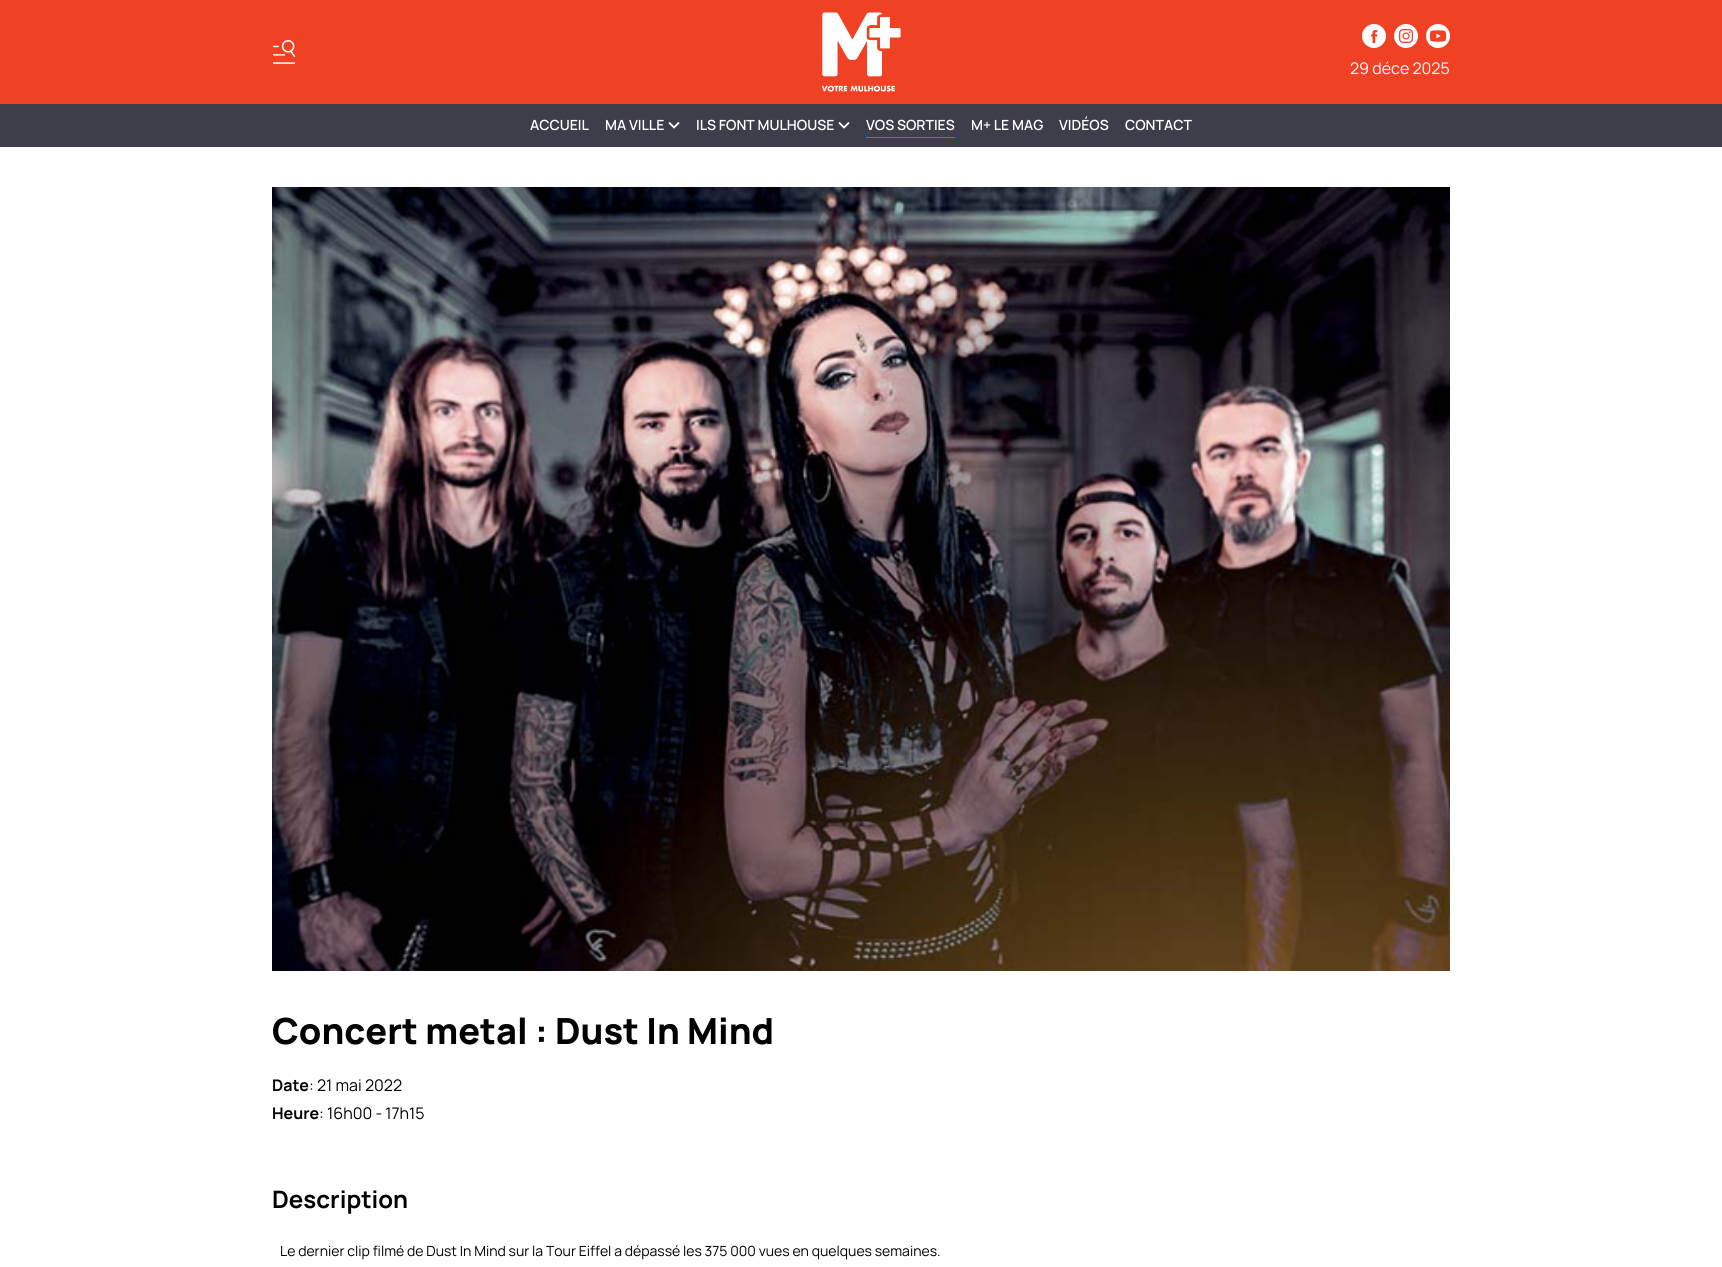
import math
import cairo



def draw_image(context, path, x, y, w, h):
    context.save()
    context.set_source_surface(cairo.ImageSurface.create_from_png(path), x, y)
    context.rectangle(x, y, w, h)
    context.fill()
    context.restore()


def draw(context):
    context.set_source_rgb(1, 1, 1)
    context.paint()
    context.set_source_rgb(240 / 255, 65 / 255, 36 / 255)
    context.rectangle(0, 0, 1722, 104)
    context.fill()
    draw_image(context, "images/1.png", 272, 40, 24, 24)
    draw_image(context, "images/2.png", 822, 12, 79, 80)
    draw_image(context, "images/3.png", 1362, 24, 24, 24)
    draw_image(context, "images/4.png", 1394, 24, 24, 24)
    draw_image(context, "images/5.png", 1426, 24, 24, 24)
    context.set_source_rgb(62 / 255, 61 / 255, 74 / 255)
    context.rectangle(0, 104, 1722, 43)
    context.fill()
    context.new_path()
    context.move_to(669, 122.5)
    context.line_to(674, 127.5)
    context.line_to(679, 122.5)
    context.set_source_rgb(1, 1, 1)
    context.set_line_width(1.8)
    context.stroke()
    context.new_path()
    context.move_to(839, 122.5)
    context.line_to(844, 127.5)
    context.line_to(849, 122.5)
    context.stroke()
    context.set_source_rgb(240 / 255, 65 / 255, 36 / 255)
    context.rectangle(866, 137, 89, 1)
    context.fill()
    draw_image(context, "images/6.png", 272, 187, 1178, 784)
    context.select_font_face("Manrope")
    context.set_font_size(16)
    context.set_source_rgb(1, 1, 1)
    context.move_to(1350, 74)
    context.show_text("29 déce 2025")
    context.select_font_face("Manrope SemiBold")
    context.set_font_size(14)
    context.move_to(530, 130)
    context.show_text("ACCUEIL")
    context.move_to(605, 130)
    context.show_text("MA VILLE")
    context.move_to(696, 130)
    context.show_text("ILS FONT MULHOUSE")
    context.move_to(866, 130)
    context.show_text("VOS SORTIES")
    context.move_to(971, 130)
    context.show_text("M+ LE MAG")
    context.move_to(1059, 130)
    context.show_text("VIDÉOS")
    context.move_to(1125, 130)
    context.show_text("CONTACT")
    context.select_font_face("Manrope ExtraBold")
    context.set_font_size(36)
    context.set_source_rgb(0, 0, 0)
    context.move_to(272, 1044)
    context.show_text("Concert metal : Dust In Mind")
    context.select_font_face("Manrope", cairo.FontSlant.NORMAL, cairo.FontWeight.BOLD)
    context.set_font_size(16)
    context.move_to(272, 1091)
    context.show_text("Date")
    context.select_font_face("Manrope")
    context.move_to(309, 1091)
    context.show_text(": 21 mai 2022")
    context.select_font_face("Manrope", cairo.FontSlant.NORMAL, cairo.FontWeight.BOLD)
    context.move_to(272, 1119)
    context.show_text("Heure")
    context.select_font_face("Manrope")
    context.move_to(319, 1119)
    context.show_text(": 16h00 - 17h15")
    context.select_font_face("Manrope", cairo.FontSlant.NORMAL, cairo.FontWeight.BOLD)
    context.set_font_size(24)
    context.move_to(272, 1208)
    context.show_text("Description")
    context.select_font_face("Manrope")
    context.set_font_size(14)
    context.move_to(280, 1256)
    context.show_text("Le dernier clip filmé de Dust In Mind sur la Tour Eiffel a dépassé les 375 000 vues en quelques semaines.")


surface = cairo.ImageSurface(cairo.Format.RGB24, 1722, 1267)
context = cairo.Context(surface)
options = cairo.FontOptions()
options.set_hint_metrics(cairo.HintMetrics.OFF)
options.set_hint_style(cairo.HintStyle.NONE)
context.set_font_options(options)
context.set_miter_limit(4)
draw(context)
surface.write_to_png("out.png")
